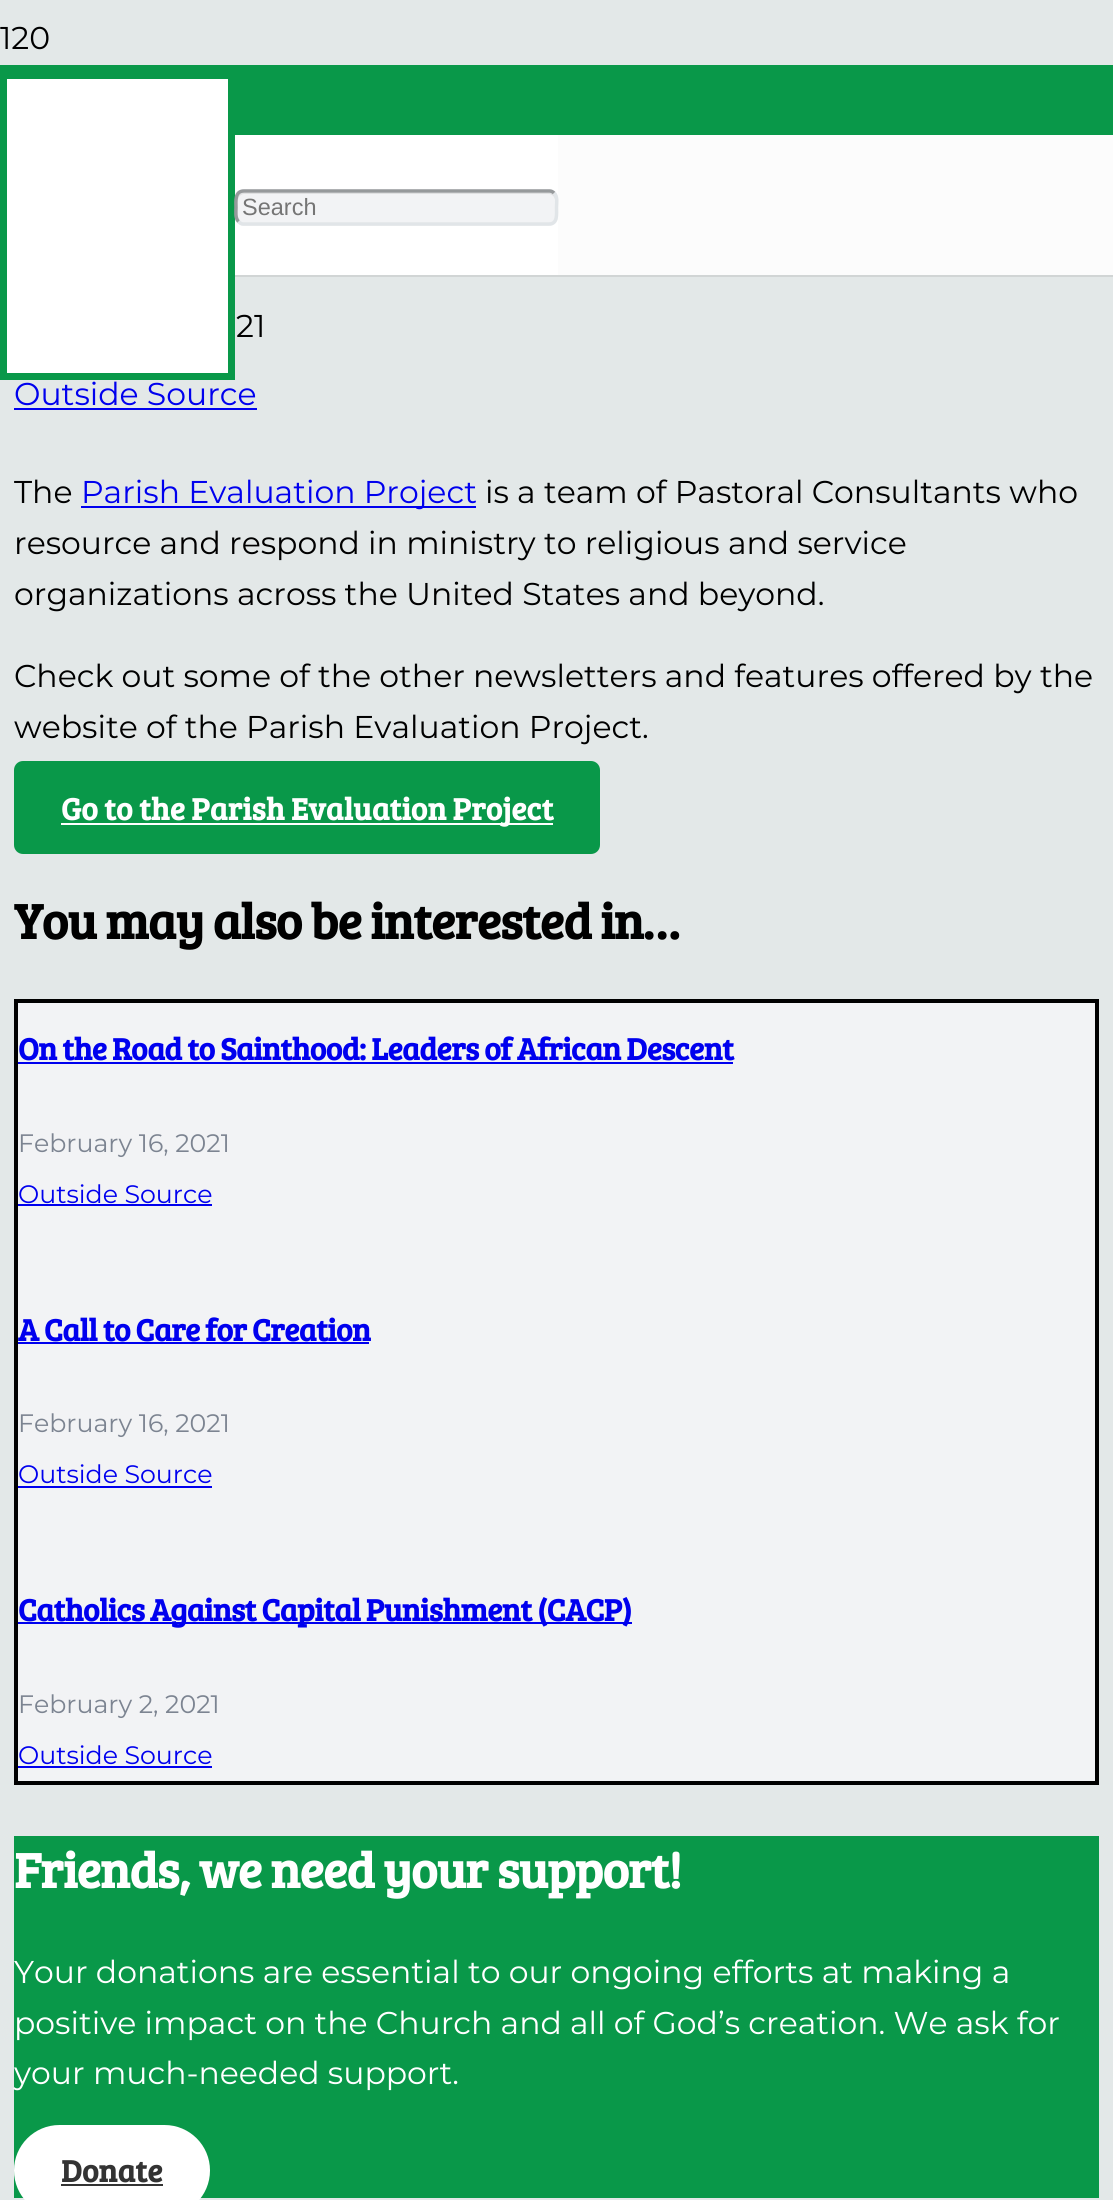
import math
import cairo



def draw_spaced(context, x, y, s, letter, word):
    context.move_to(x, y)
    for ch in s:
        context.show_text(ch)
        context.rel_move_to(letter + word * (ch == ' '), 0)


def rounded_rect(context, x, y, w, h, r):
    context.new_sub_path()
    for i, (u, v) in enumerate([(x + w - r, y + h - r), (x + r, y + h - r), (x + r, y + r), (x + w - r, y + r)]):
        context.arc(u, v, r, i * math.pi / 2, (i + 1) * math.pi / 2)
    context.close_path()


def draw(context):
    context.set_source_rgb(227 / 255, 232 / 255, 232 / 255)
    context.paint()
    context.set_source_rgb(9 / 255, 152 / 255, 73 / 255)
    context.rectangle(0, 65, 1113, 70)
    context.fill()
    context.set_source_rgb(209 / 255, 213 / 255, 213 / 255)
    context.rectangle(235, 275, 878, 2)
    context.fill()
    context.set_source_rgb(252 / 255, 252 / 255, 252 / 255)
    context.rectangle(558, 135, 555, 140)
    context.fill()
    context.set_source_rgb(1, 1, 1)
    context.rectangle(3.5, 75.5, 228, 301)
    context.fill_preserve()
    context.set_source_rgb(9 / 255, 152 / 255, 73 / 255)
    context.set_line_width(7)
    context.stroke()
    context.set_source_rgb(1, 1, 1)
    context.rectangle(235, 135, 323, 140)
    context.fill()
    context.set_source_rgb(242 / 255, 243 / 255, 245 / 255)
    rounded_rect(context, 235, 189, 323, 37, 9)
    context.fill()
    context.set_source_rgb(223 / 255, 224 / 255, 225 / 255)
    context.new_path()
    context.move_to(244, 194)
    context.line_to(549, 194)
    context.curve_to(552, 194, 555, 197, 555, 200)
    context.line_to(555, 198)
    context.curve_to(555, 195, 553, 193, 550, 193)
    context.line_to(243, 193)
    context.curve_to(240, 193, 238, 195, 238, 198)
    context.line_to(238, 200)
    context.curve_to(238, 197, 241, 194, 244, 194)
    context.close_path()
    context.fill()
    context.new_path()
    context.move_to(554, 193)
    context.curve_to(558, 196.5, 556.5, 203, 556.5, 207.5)
    context.curve_to(556.5, 213.5, 558, 224, 549, 224)
    context.line_to(243, 224)
    context.curve_to(241.5, 224, 240, 223, 238.5, 221.5)
    context.set_source_rgb(225 / 255, 229 / 255, 232 / 255)
    context.set_line_width(3.5)
    context.stroke()
    context.new_path()
    context.move_to(238.5, 221.5)
    context.curve_to(235, 218, 236, 212, 236, 207.5)
    context.curve_to(236, 201.5, 234.5, 191, 244, 191)
    context.line_to(549.5, 191)
    context.curve_to(551.5, 191, 553, 192, 554, 193)
    context.set_source_rgb(150 / 255, 153 / 255, 155 / 255)
    context.stroke()
    context.set_source_rgb(0, 0, 238 / 255)
    context.rectangle(14, 408, 243, 2)
    context.fill()
    context.rectangle(81, 506, 395, 2)
    context.fill()
    context.set_source_rgb(9 / 255, 152 / 255, 73 / 255)
    rounded_rect(context, 14, 761, 586, 93, 9)
    context.fill()
    context.set_source_rgb(1, 1, 1)
    context.rectangle(61, 823, 492, 2)
    context.fill()
    context.set_source_rgb(242 / 255, 243 / 255, 245 / 255)
    context.rectangle(16, 1001, 1081, 782)
    context.fill_preserve()
    context.set_source_rgb(0, 0, 0)
    context.set_line_width(4)
    context.stroke()
    context.set_source_rgb(0, 0, 238 / 255)
    context.rectangle(18, 1062, 715, 2)
    context.fill()
    context.rectangle(18, 1204, 194, 2)
    context.fill()
    context.rectangle(18, 1342, 351, 2)
    context.fill()
    context.rectangle(18, 1486, 194, 2)
    context.fill()
    context.rectangle(18, 1622, 614, 2)
    context.fill()
    context.rectangle(18, 1766, 194, 2)
    context.fill()
    context.set_source_rgb(9 / 255, 152 / 255, 73 / 255)
    context.rectangle(14, 1836, 1085, 362)
    context.fill()
    context.set_source_rgb(1, 1, 1)
    rounded_rect(context, 14, 2125, 196, 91, 45.5)
    context.fill()
    context.set_source_rgb(51 / 255, 51 / 255, 51 / 255)
    context.rectangle(61, 2184, 102, 2)
    context.fill()
    context.select_font_face("Montserrat")
    context.set_font_size(31.5)
    context.set_source_rgb(0, 0, 0)
    context.move_to(0, 49)
    context.show_text("120")
    context.select_font_face("Liberation Sans")
    context.set_font_size(23.5)
    context.set_source_rgb(117 / 255, 117 / 255, 117 / 255)
    context.move_to(242, 215)
    context.show_text("Search")
    context.select_font_face("Montserrat")
    context.set_font_size(31.5)
    context.set_source_rgb(0, 0, 0)
    context.move_to(236, 337)
    context.show_text("21")
    context.set_source_rgb(0, 0, 238 / 255)
    context.move_to(14, 405)
    context.show_text("Outside Source")
    context.set_source_rgb(0, 0, 0)
    context.move_to(14, 503)
    context.show_text("The")
    context.set_source_rgb(0, 0, 238 / 255)
    context.move_to(81, 503)
    context.show_text("Parish Evaluation Project")
    context.set_source_rgb(0, 0, 0)
    context.move_to(485, 503)
    context.show_text("is a team of Pastoral Consultants who")
    context.move_to(14, 554)
    context.show_text("resource and respond in ministry to religious and service")
    context.move_to(14, 605)
    context.show_text("organizations across the United States and beyond.")
    context.move_to(14, 687)
    context.show_text("Check out some of the other newsletters and features offered by the")
    context.move_to(14, 738)
    context.show_text("website of the Parish Evaluation Project.")
    context.select_font_face("Bree Serif", cairo.FontSlant.NORMAL, cairo.FontWeight.BOLD)
    context.set_source_rgb(1, 1, 1)
    context.move_to(61, 820)
    context.show_text("Go to the Parish Evaluation Project")
    context.set_font_size(50.4)
    context.set_source_rgb(0, 0, 0)
    draw_spaced(context, 14, 939, "You may also be interested in…", -1, 0)
    context.set_font_size(31.5)
    context.set_source_rgb(0, 0, 238 / 255)
    draw_spaced(context, 18, 1060, "On the Road to Sainthood: Leaders of African Descent", -0.63, 0)
    context.select_font_face("Montserrat")
    context.set_font_size(25.25)
    context.set_source_rgb(124 / 255, 132 / 255, 145 / 255)
    context.move_to(18, 1152)
    context.show_text("February 16, 2021")
    context.set_source_rgb(0, 0, 238 / 255)
    context.move_to(18, 1203)
    context.show_text("Outside Source")
    context.select_font_face("Bree Serif", cairo.FontSlant.NORMAL, cairo.FontWeight.BOLD)
    context.set_font_size(31.5)
    draw_spaced(context, 18, 1341, "A Call to Care for Creation", -0.63, 0)
    context.select_font_face("Montserrat")
    context.set_font_size(25.25)
    context.set_source_rgb(124 / 255, 132 / 255, 145 / 255)
    context.move_to(18, 1432)
    context.show_text("February 16, 2021")
    context.set_source_rgb(0, 0, 238 / 255)
    context.move_to(18, 1483)
    context.show_text("Outside Source")
    context.select_font_face("Bree Serif", cairo.FontSlant.NORMAL, cairo.FontWeight.BOLD)
    context.set_font_size(31.5)
    draw_spaced(context, 18, 1621, "Catholics Against Capital Punishment (CACP)", -0.63, 0)
    context.select_font_face("Montserrat")
    context.set_font_size(25.25)
    context.set_source_rgb(124 / 255, 132 / 255, 145 / 255)
    context.move_to(18, 1713)
    context.show_text("February 2, 2021")
    context.set_source_rgb(0, 0, 238 / 255)
    context.move_to(18, 1764)
    context.show_text("Outside Source")
    context.select_font_face("Bree Serif", cairo.FontSlant.NORMAL, cairo.FontWeight.BOLD)
    context.set_font_size(50.4)
    context.set_source_rgb(1, 1, 1)
    draw_spaced(context, 14, 1888, "Friends, we need your support!", -1, 0)
    context.select_font_face("Montserrat")
    context.set_font_size(31.5)
    context.move_to(14, 1983)
    context.show_text("Your donations are essential to our ongoing efforts at making a")
    context.move_to(14, 2034)
    context.show_text("positive impact on the Church and all of God’s creation. We ask for")
    context.move_to(14, 2084)
    context.show_text("your much-needed support.")
    context.select_font_face("Bree Serif", cairo.FontSlant.NORMAL, cairo.FontWeight.BOLD)
    context.set_source_rgb(51 / 255, 51 / 255, 51 / 255)
    context.move_to(61, 2182)
    context.show_text("Donate")


surface = cairo.ImageSurface(cairo.Format.RGB24, 1113, 2200)
context = cairo.Context(surface)
options = cairo.FontOptions()
options.set_hint_metrics(cairo.HintMetrics.OFF)
options.set_hint_style(cairo.HintStyle.NONE)
context.set_font_options(options)
context.set_miter_limit(4)
draw(context)
surface.write_to_png("out.png")
